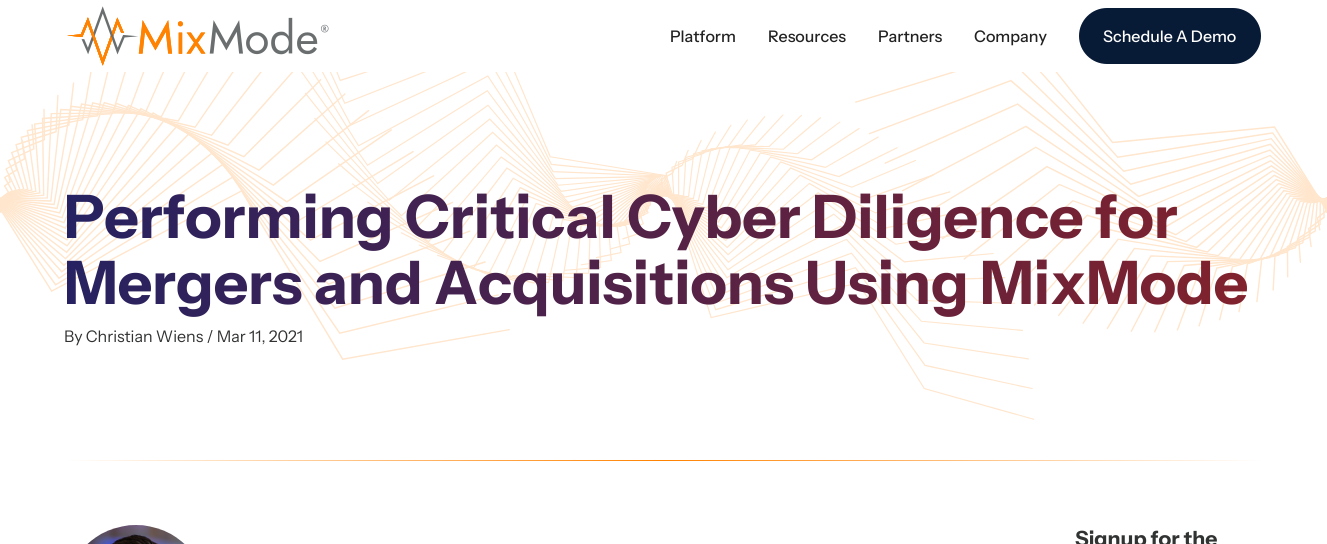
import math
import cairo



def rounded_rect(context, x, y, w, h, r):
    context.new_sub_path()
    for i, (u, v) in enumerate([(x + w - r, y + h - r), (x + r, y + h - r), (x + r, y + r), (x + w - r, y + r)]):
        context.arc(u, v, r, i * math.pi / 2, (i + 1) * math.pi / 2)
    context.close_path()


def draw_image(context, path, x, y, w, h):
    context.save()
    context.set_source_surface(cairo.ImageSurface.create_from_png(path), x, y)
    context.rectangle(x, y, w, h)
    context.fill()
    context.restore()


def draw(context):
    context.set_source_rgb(1, 1, 1)
    context.paint()
    draw_image(context, "images/2.png", 67, 17, 139, 49)
    draw_image(context, "images/1.png", 67, 6, 262, 60)
    context.set_source_rgb(7 / 255, 26 / 255, 54 / 255)
    rounded_rect(context, 1079, 8, 182, 56, 28)
    context.fill()
    draw_image(context, "images/3.png", 0, 72, 1327, 348)
    gradient = cairo.LinearGradient(64, 461, 1263, 460)
    gradient.add_color_stop_rgba(0, 1, 1, 1, 1)
    gradient.add_color_stop_rgba(0.5, 1, 130 / 255, 0, 1)
    gradient.add_color_stop_rgba(1, 1, 1, 1, 1)
    context.set_source(gradient)
    context.rectangle(64, 460, 1199, 1)
    context.fill()
    draw_image(context, "images/4.png", 87, 525, 98, 19)
    context.select_font_face("Instrument Sans Medium")
    context.set_font_size(16)
    context.set_source_rgb(34 / 255, 34 / 255, 34 / 255)
    context.move_to(670, 42)
    context.show_text("Platform")
    context.move_to(768, 42)
    context.show_text("Resources")
    context.move_to(878, 42)
    context.show_text("Partners")
    context.move_to(974, 42)
    context.show_text("Company")
    context.set_source_rgb(1, 1, 1)
    context.move_to(1103, 42)
    context.show_text("Schedule A Demo")
    context.select_font_face("Instrument Sans", cairo.FontSlant.NORMAL, cairo.FontWeight.BOLD)
    context.set_font_size(60)
    gradient = cairo.LinearGradient(64, 250, 1263, 250)
    gradient.add_color_stop_rgba(0, 38 / 255, 34 / 255, 97 / 255, 1)
    gradient.add_color_stop_rgba(1, 130 / 255, 34 / 255, 44 / 255, 1)
    context.set_source(gradient)
    context.move_to(64, 238)
    context.show_text("Performing Critical Cyber Diligence for")
    context.move_to(64, 304)
    context.show_text("Mergers and Acquisitions Using MixMode")
    context.select_font_face("Instrument Sans")
    context.set_font_size(16)
    context.set_source_rgb(49 / 255, 50 / 255, 50 / 255)
    context.move_to(64, 342)
    context.show_text("By Christian Wiens / Mar 11, 2021")
    context.select_font_face("Instrument Sans", cairo.FontSlant.NORMAL, cairo.FontWeight.BOLD)
    context.set_font_size(21)
    context.move_to(1075, 546)
    context.show_text("Signup for the")


surface = cairo.ImageSurface(cairo.Format.RGB24, 1327, 544)
context = cairo.Context(surface)
options = cairo.FontOptions()
options.set_hint_metrics(cairo.HintMetrics.OFF)
options.set_hint_style(cairo.HintStyle.NONE)
context.set_font_options(options)
context.set_miter_limit(4)
draw(context)
surface.write_to_png("out.png")
